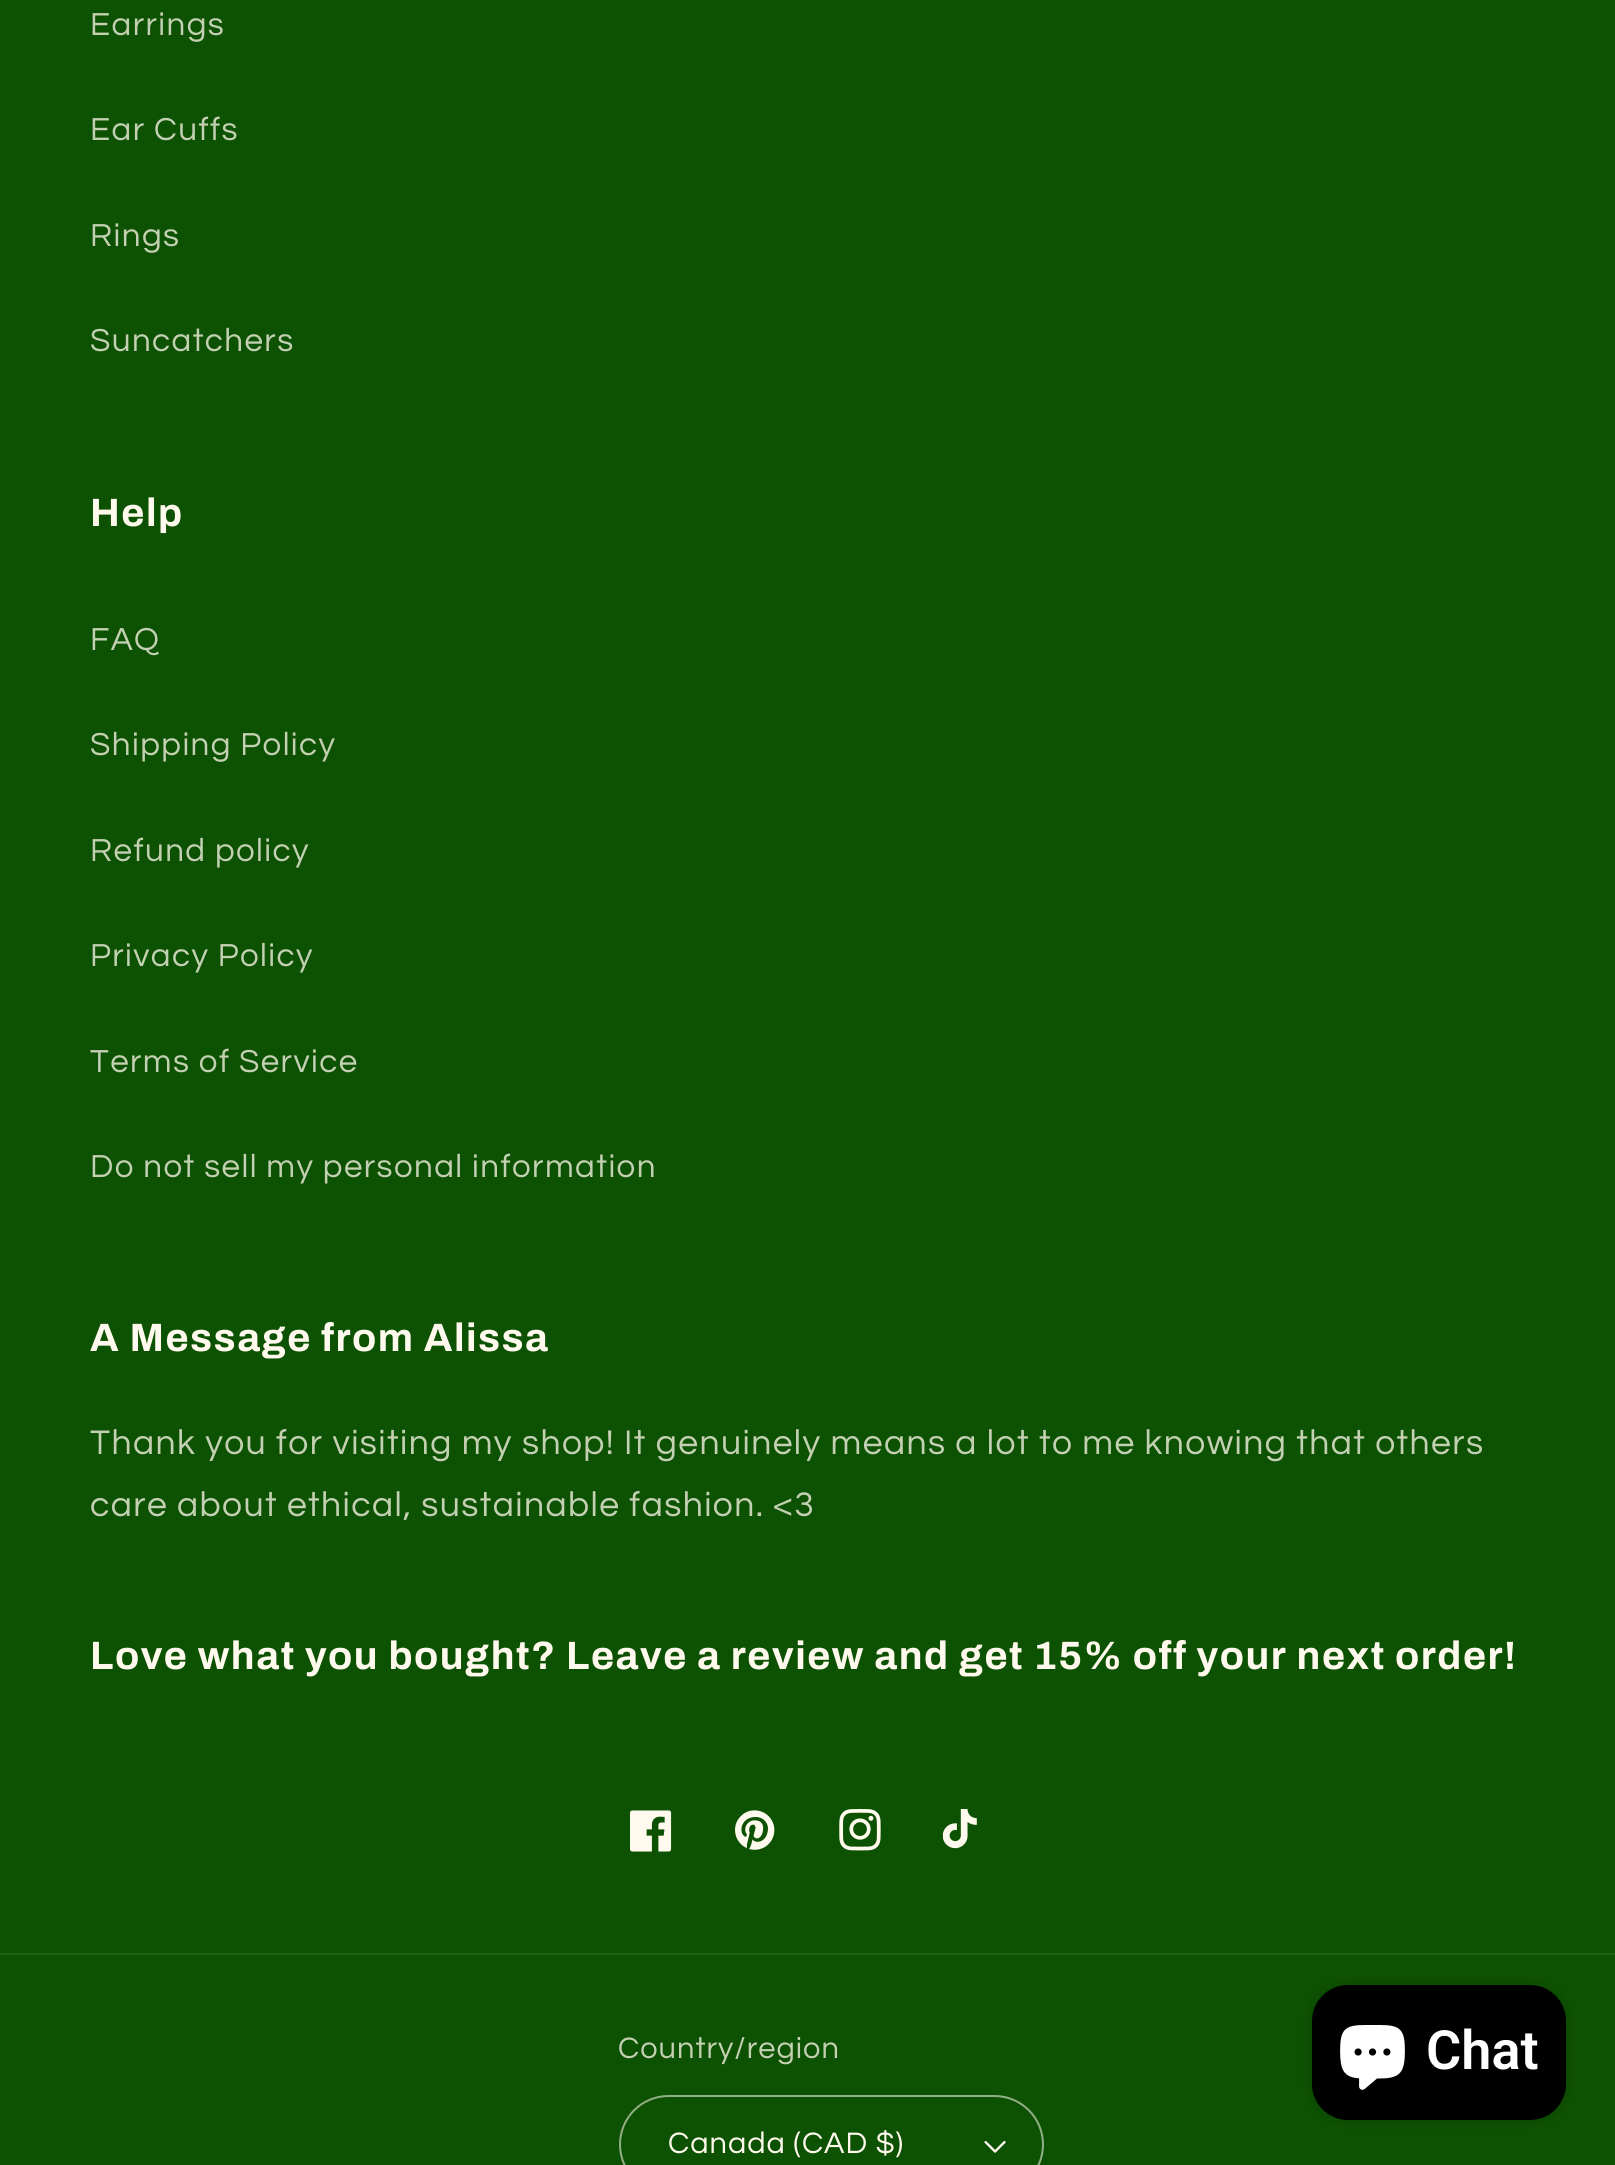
import math
import cairo



def draw_spaced(context, x, y, s, letter, word):
    context.move_to(x, y)
    for ch in s:
        context.show_text(ch)
        context.rel_move_to(letter + word * (ch == ' '), 0)


def rounded_rect(context, x, y, w, h, r):
    context.new_sub_path()
    for i, (u, v) in enumerate([(x + w - r, y + h - r), (x + r, y + h - r), (x + r, y + r), (x + w - r, y + r)]):
        context.arc(u, v, r, i * math.pi / 2, (i + 1) * math.pi / 2)
    context.close_path()


def draw_shadow(context, x, y, w, h, r, blur, alpha):
    context.push_group_with_content(cairo.Content.ALPHA)
    context.set_operator(cairo.Operator.SOURCE)
    for i in range(15, -16, -2):
        e = blur * i / 6
        if min(w, h) + 2 * e > 0:
            context.set_source_rgba(0, 0, 0, alpha * math.erfc((i - 1) / 8.5) / 2)
            rounded_rect(context, x - e, y - e, w + 2 * e, h + 2 * e, max(0, min(r + e + blur * .6, min(w, h) / 2 + e)))
            context.fill()
    context.mask(context.pop_group())


def draw_image(context, path, x, y, w, h):
    context.save()
    context.set_source_surface(cairo.ImageSurface.create_from_png(path), x, y)
    context.rectangle(x, y, w, h)
    context.fill()
    context.restore()


def draw(context):
    context.set_source_rgb(13 / 255, 81 / 255, 2 / 255)
    context.paint()
    draw_image(context, "images/1.png", 630, 1810, 42, 42)
    draw_image(context, "images/2.png", 735, 1810, 40, 40)
    draw_image(context, "images/3.png", 839, 1809, 42, 42)
    draw_image(context, "images/4.png", 943, 1809, 34, 40)
    context.set_source_rgb(32 / 255, 95 / 255, 21 / 255)
    context.rectangle(0, 1953, 1615, 2)
    context.fill()
    draw_image(context, "images/5.png", 984, 2140, 22, 13)
    rounded_rect(context, 620, 2096, 423, 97, 48.5)
    context.set_source_rgb(146 / 255, 174 / 255, 131 / 255)
    context.stroke()
    context.set_source_rgb(0, 0, 0)
    draw_shadow(context, 1312, 1985, 254, 135, 36, 5.5, 0.15)
    context.set_source_rgb(0, 0, 0)
    rounded_rect(context, 1312, 1985, 254, 135, 36)
    context.fill()
    draw_image(context, "images/6.png", 1340, 2025, 65, 65)
    context.select_font_face("Questrial")
    context.set_font_size(33.1)
    context.set_source_rgb(195 / 255, 208 / 255, 178 / 255)
    draw_spaced(context, 90, 35, "Earrings", 1.42, 0)
    draw_spaced(context, 90, 140, "Ear Cuffs", 1.42, 0)
    draw_spaced(context, 90, 246, "Rings", 1.42, 0)
    draw_spaced(context, 90, 351, "Suncatchers", 1.42, 0)
    context.select_font_face("Archivo", cairo.FontSlant.NORMAL, cairo.FontWeight.BOLD)
    context.set_font_size(39.6)
    context.set_source_rgb(1, 250 / 255, 237 / 255)
    draw_spaced(context, 90, 526, "Help", 1.5, 0)
    context.select_font_face("Questrial")
    context.set_font_size(33.1)
    context.set_source_rgb(195 / 255, 208 / 255, 178 / 255)
    draw_spaced(context, 90, 650, "FAQ", 1.42, 0)
    draw_spaced(context, 90, 755, "Shipping Policy", 1.42, 0)
    draw_spaced(context, 90, 861, "Refund policy", 1.42, 0)
    draw_spaced(context, 90, 966, "Privacy Policy", 1.42, 0)
    draw_spaced(context, 90, 1072, "Terms of Service", 1.42, 0)
    draw_spaced(context, 90, 1177, "Do not sell my personal information", 1.42, 0)
    context.select_font_face("Archivo", cairo.FontSlant.NORMAL, cairo.FontWeight.BOLD)
    context.set_font_size(39.6)
    context.set_source_rgb(1, 250 / 255, 237 / 255)
    draw_spaced(context, 90, 1351, "A Message from Alissa", 1.5, 0)
    context.select_font_face("Questrial")
    context.set_font_size(35.45)
    context.set_source_rgb(195 / 255, 208 / 255, 178 / 255)
    draw_spaced(context, 90, 1454, "Thank you for visiting my shop! It genuinely means a lot to me knowing that others", 1.42, 0)
    draw_spaced(context, 90, 1516, "care about ethical, sustainable fashion. <3", 1.42, 0)
    context.select_font_face("Archivo", cairo.FontSlant.NORMAL, cairo.FontWeight.BOLD)
    context.set_font_size(39.6)
    context.set_source_rgb(1, 250 / 255, 237 / 255)
    draw_spaced(context, 90, 1669, "Love what you bought? Leave a review and get 15% off your next order!", 1.5, 0)
    context.select_font_face("Questrial")
    context.set_font_size(30.75)
    context.set_source_rgb(195 / 255, 208 / 255, 178 / 255)
    draw_spaced(context, 618, 2058, "Country/region", 1, 0)
    context.set_source_rgb(1, 250 / 255, 237 / 255)
    draw_spaced(context, 668, 2153, "Canada (CAD $)", 1, 0)
    context.select_font_face("Roboto SemiBold")
    context.set_font_size(54)
    context.set_source_rgb(1, 1, 1)
    context.move_to(1426, 2069)
    context.show_text("Chat")


surface = cairo.ImageSurface(cairo.Format.RGB24, 1615, 2165)
context = cairo.Context(surface)
options = cairo.FontOptions()
options.set_hint_metrics(cairo.HintMetrics.OFF)
options.set_hint_style(cairo.HintStyle.NONE)
context.set_font_options(options)
context.set_miter_limit(4)
draw(context)
surface.write_to_png("out.png")
